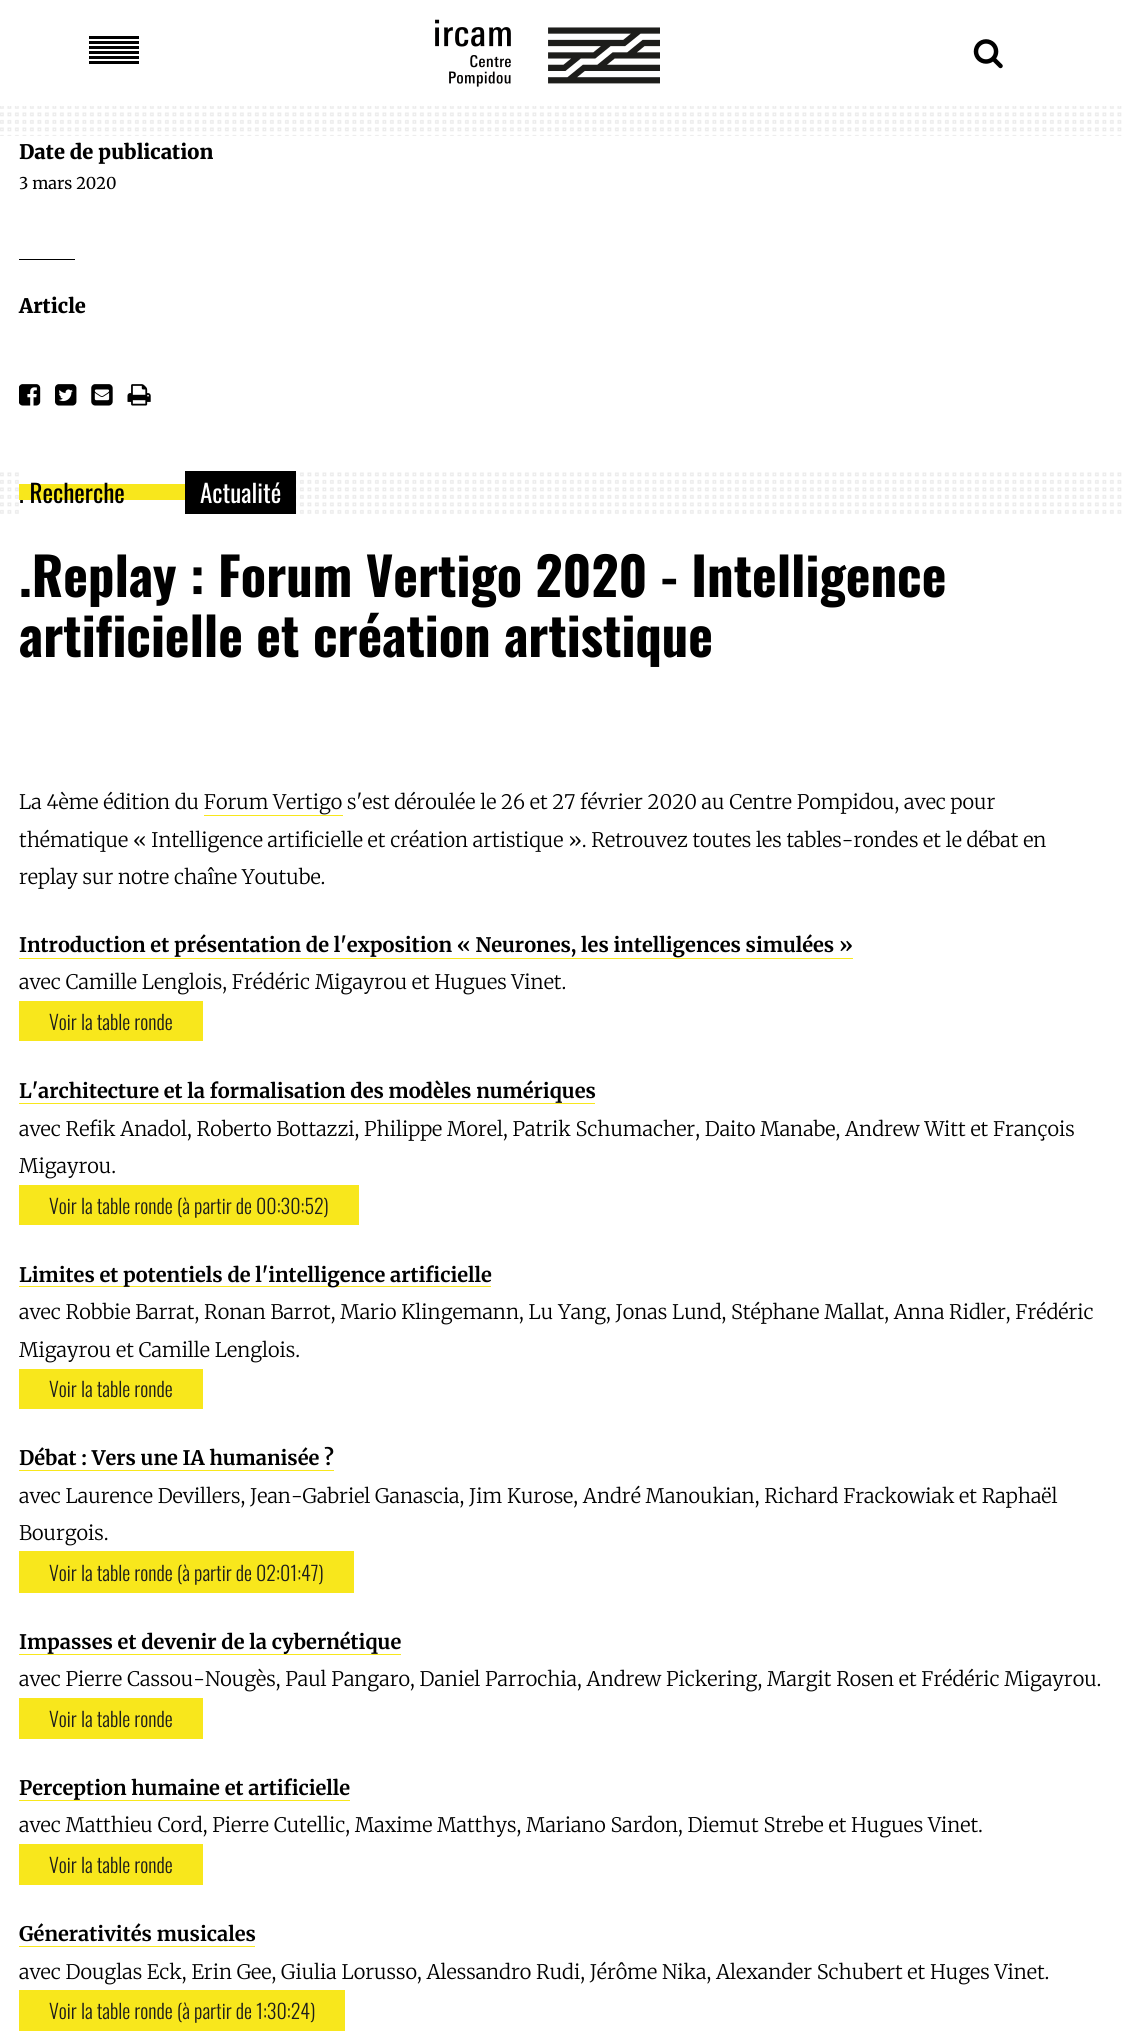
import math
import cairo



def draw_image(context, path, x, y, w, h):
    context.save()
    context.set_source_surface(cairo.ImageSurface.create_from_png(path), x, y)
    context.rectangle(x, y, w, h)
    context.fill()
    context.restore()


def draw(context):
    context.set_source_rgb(1, 1, 1)
    context.paint()
    context.set_source_rgb(0, 0, 0)
    context.rectangle(89, 41, 50, 3)
    context.fill()
    context.rectangle(89, 36, 50, 3)
    context.fill()
    context.rectangle(89, 46, 50, 3)
    context.fill()
    context.rectangle(89, 56, 50, 3)
    context.fill()
    context.rectangle(89, 51, 50, 3)
    context.fill()
    context.rectangle(89, 61, 50, 3)
    context.fill()
    draw_image(context, "images/1.png", 435, 19, 225, 68)
    draw_image(context, "images/2.png", 973, 39, 30, 30)
    draw_image(context, "images/3.png", 0, 106, 1122, 408)
    context.set_source_rgb(1, 1, 1)
    context.rectangle(0, 136, 1122, 333)
    context.fill()
    context.set_source_rgb(0, 0, 0)
    context.rectangle(19, 259, 56, 1)
    context.fill()
    draw_image(context, "images/4.png", 19, 384, 22, 22)
    draw_image(context, "images/5.png", 55, 384, 22, 22)
    draw_image(context, "images/6.png", 91, 384, 22, 22)
    draw_image(context, "images/7.png", 127, 384, 24, 22)
    context.set_source_rgb(1, 1, 1)
    context.rectangle(22, 472, 162, 42)
    context.fill()
    context.set_source_rgb(248 / 255, 231 / 255, 28 / 255)
    context.rectangle(19, 484, 166, 16)
    context.fill()
    context.set_source_rgb(0, 0, 0)
    context.rectangle(185, 471, 111, 43)
    context.fill()
    context.set_source_rgb(248 / 255, 231 / 255, 28 / 255)
    context.rectangle(204, 815, 139, 1)
    context.fill()
    context.rectangle(19, 958, 834, 1)
    context.fill()
    context.rectangle(19, 1001, 184, 40)
    context.fill()
    context.rectangle(19, 1103, 576, 1)
    context.fill()
    context.rectangle(19, 1185, 340, 40)
    context.fill()
    context.rectangle(19, 1286, 472, 1)
    context.fill()
    context.rectangle(19, 1369, 184, 40)
    context.fill()
    context.rectangle(19, 1470, 315, 1)
    context.fill()
    context.rectangle(19, 1551, 335, 42)
    context.fill()
    context.rectangle(19, 1654, 382, 1)
    context.fill()
    context.rectangle(19, 1698, 184, 41)
    context.fill()
    context.rectangle(19, 1800, 331, 1)
    context.fill()
    context.rectangle(19, 1844, 184, 41)
    context.fill()
    context.rectangle(19, 1946, 236, 1)
    context.fill()
    context.rectangle(19, 1990, 326, 41)
    context.fill()
    context.select_font_face("Merriweather Black")
    context.set_font_size(20)
    context.set_source_rgb(0, 0, 0)
    context.move_to(19, 159)
    context.show_text("Date de publication")
    context.select_font_face("Merriweather")
    context.set_font_size(16.25)
    context.move_to(19, 189)
    context.show_text("3 mars 2020")
    context.select_font_face("Merriweather Black")
    context.set_font_size(20)
    context.move_to(19, 313)
    context.show_text("Article")
    context.select_font_face("Oswald")
    context.set_font_size(25)
    context.move_to(19, 503)
    context.show_text(". Recherche")
    context.set_source_rgb(1, 1, 1)
    context.move_to(200, 503)
    context.show_text("Actualité")
    context.select_font_face("Oswald", cairo.FontSlant.NORMAL, cairo.FontWeight.BOLD)
    context.set_font_size(52.5)
    context.set_source_rgb(0, 0, 0)
    context.move_to(19, 597)
    context.show_text(".Replay : Forum Vertigo 2020 - Intelligence")
    context.move_to(19, 657)
    context.show_text("artificielle et création artistique")
    context.select_font_face("Merriweather Light")
    context.set_font_size(20)
    context.move_to(19, 809)
    context.show_text("La 4ème édition du Forum Vertigo")
    context.move_to(347, 809)
    context.show_text("s'est déroulée le 26 et 27 février 2020 au Centre Pompidou, avec pour")
    context.move_to(19, 847)
    context.show_text("thématique « Intelligence artificielle et création artistique ». Retrouvez toutes les tables-rondes et le débat en")
    context.move_to(19, 884)
    context.show_text("replay sur notre chaîne Youtube.")
    context.select_font_face("Merriweather", cairo.FontSlant.NORMAL, cairo.FontWeight.BOLD)
    context.move_to(19, 952)
    context.show_text("Introduction et présentation de l'exposition « Neurones, les intelligences simulées »")
    context.select_font_face("Merriweather Light")
    context.move_to(19, 989)
    context.show_text("avec Camille Lenglois, Frédéric Migayrou et Hugues Vinet.")
    context.select_font_face("Oswald Light")
    context.set_source_rgb(29 / 255, 29 / 255, 27 / 255)
    context.move_to(49, 1030)
    context.show_text("Voir la table ronde")
    context.select_font_face("Merriweather", cairo.FontSlant.NORMAL, cairo.FontWeight.BOLD)
    context.set_source_rgb(0, 0, 0)
    context.move_to(19, 1098)
    context.show_text("L'architecture et la formalisation des modèles numériques")
    context.select_font_face("Merriweather Light")
    context.move_to(19, 1136)
    context.show_text("avec Refik Anadol, Roberto Bottazzi, Philippe Morel, Patrik Schumacher, Daito Manabe, Andrew Witt et François")
    context.move_to(19, 1173)
    context.show_text("Migayrou.")
    context.select_font_face("Oswald Light")
    context.set_source_rgb(29 / 255, 29 / 255, 27 / 255)
    context.move_to(49, 1214)
    context.show_text("Voir la table ronde (à partir de 00:30:52)")
    context.select_font_face("Merriweather", cairo.FontSlant.NORMAL, cairo.FontWeight.BOLD)
    context.set_source_rgb(0, 0, 0)
    context.move_to(19, 1282)
    context.show_text("Limites et potentiels de l'intelligence artificielle")
    context.select_font_face("Merriweather Light")
    context.move_to(19, 1319)
    context.show_text("avec Robbie Barrat, Ronan Barrot, Mario Klingemann, Lu Yang, Jonas Lund, Stéphane Mallat, Anna Ridler, Frédéric")
    context.move_to(19, 1357)
    context.show_text("Migayrou et Camille Lenglois.")
    context.select_font_face("Oswald Light")
    context.set_source_rgb(29 / 255, 29 / 255, 27 / 255)
    context.move_to(49, 1397)
    context.show_text("Voir la table ronde")
    context.select_font_face("Merriweather", cairo.FontSlant.NORMAL, cairo.FontWeight.BOLD)
    context.set_source_rgb(0, 0, 0)
    context.move_to(19, 1465)
    context.show_text("Débat : Vers une IA humanisée ?")
    context.select_font_face("Merriweather Light")
    context.move_to(19, 1503)
    context.show_text("avec Laurence Devillers, Jean-Gabriel Ganascia, Jim Kurose, André Manoukian, Richard Frackowiak et Raphaël")
    context.move_to(19, 1540)
    context.show_text("Bourgois.")
    context.select_font_face("Oswald Light")
    context.set_source_rgb(29 / 255, 29 / 255, 27 / 255)
    context.move_to(49, 1581)
    context.show_text("Voir la table ronde (à partir de 02:01:47)")
    context.select_font_face("Merriweather", cairo.FontSlant.NORMAL, cairo.FontWeight.BOLD)
    context.set_source_rgb(0, 0, 0)
    context.move_to(19, 1649)
    context.show_text("Impasses et devenir de la cybernétique")
    context.select_font_face("Merriweather Light")
    context.move_to(19, 1686)
    context.show_text("avec Pierre Cassou-Nougès, Paul Pangaro, Daniel Parrochia, Andrew Pickering, Margit Rosen et Frédéric Migayrou.")
    context.select_font_face("Oswald Light")
    context.set_source_rgb(29 / 255, 29 / 255, 27 / 255)
    context.move_to(49, 1727)
    context.show_text("Voir la table ronde")
    context.select_font_face("Merriweather", cairo.FontSlant.NORMAL, cairo.FontWeight.BOLD)
    context.set_source_rgb(0, 0, 0)
    context.move_to(19, 1795)
    context.show_text("Perception humaine et artificielle")
    context.select_font_face("Merriweather Light")
    context.move_to(19, 1832)
    context.show_text("avec Matthieu Cord, Pierre Cutellic, Maxime Matthys, Mariano Sardon, Diemut Strebe et Hugues Vinet.")
    context.select_font_face("Oswald Light")
    context.set_source_rgb(29 / 255, 29 / 255, 27 / 255)
    context.move_to(49, 1873)
    context.show_text("Voir la table ronde")
    context.select_font_face("Merriweather", cairo.FontSlant.NORMAL, cairo.FontWeight.BOLD)
    context.set_source_rgb(0, 0, 0)
    context.move_to(19, 1941)
    context.show_text("Génerativités musicales")
    context.select_font_face("Merriweather Light")
    context.move_to(19, 1979)
    context.show_text("avec Douglas Eck, Erin Gee, Giulia Lorusso, Alessandro Rudi, Jérôme Nika, Alexander Schubert et Huges Vinet.")
    context.select_font_face("Oswald Light")
    context.set_source_rgb(29 / 255, 29 / 255, 27 / 255)
    context.move_to(49, 2019)
    context.show_text("Voir la table ronde (à partir de 1:30:24)")


surface = cairo.ImageSurface(cairo.Format.RGB24, 1125, 2035)
context = cairo.Context(surface)
options = cairo.FontOptions()
options.set_hint_metrics(cairo.HintMetrics.OFF)
options.set_hint_style(cairo.HintStyle.NONE)
context.set_font_options(options)
context.set_miter_limit(4)
draw(context)
surface.write_to_png("out.png")
